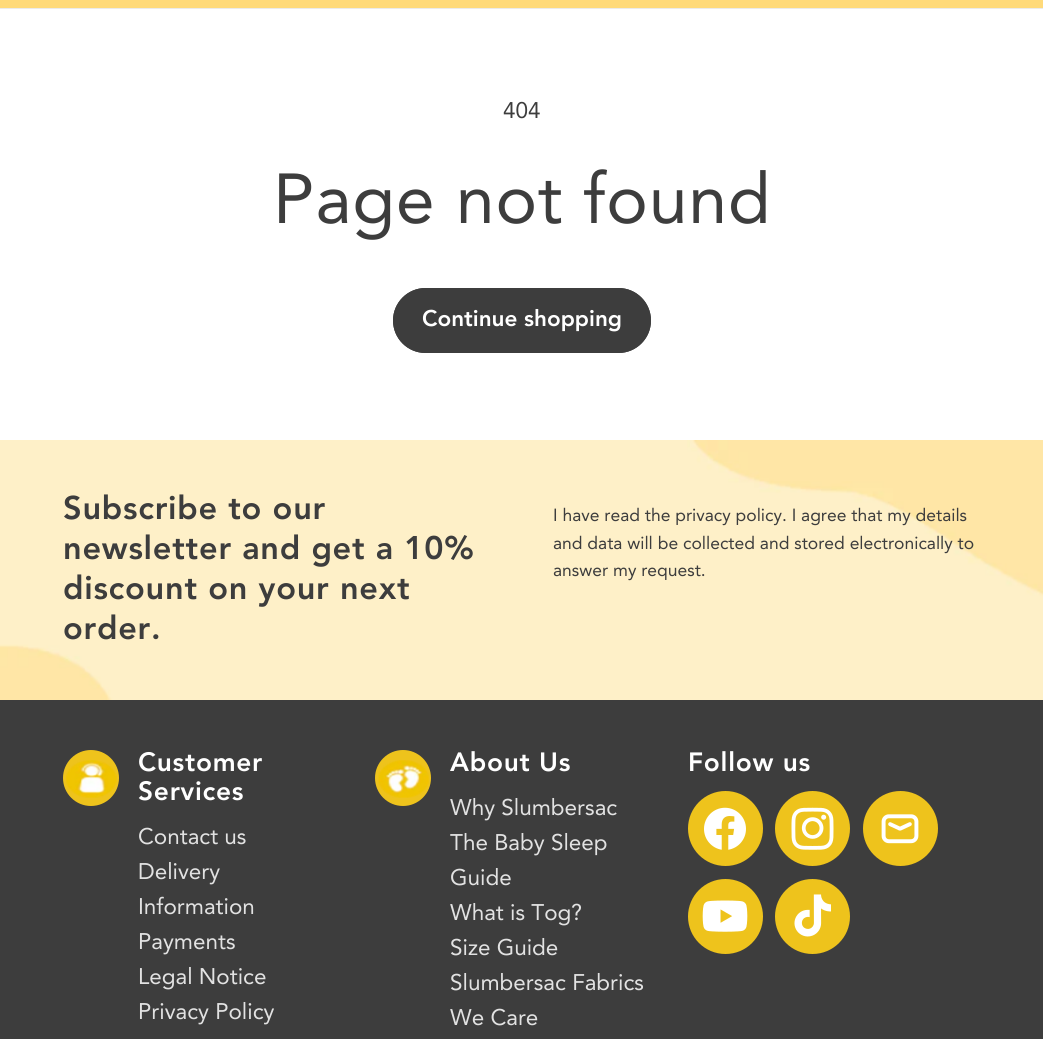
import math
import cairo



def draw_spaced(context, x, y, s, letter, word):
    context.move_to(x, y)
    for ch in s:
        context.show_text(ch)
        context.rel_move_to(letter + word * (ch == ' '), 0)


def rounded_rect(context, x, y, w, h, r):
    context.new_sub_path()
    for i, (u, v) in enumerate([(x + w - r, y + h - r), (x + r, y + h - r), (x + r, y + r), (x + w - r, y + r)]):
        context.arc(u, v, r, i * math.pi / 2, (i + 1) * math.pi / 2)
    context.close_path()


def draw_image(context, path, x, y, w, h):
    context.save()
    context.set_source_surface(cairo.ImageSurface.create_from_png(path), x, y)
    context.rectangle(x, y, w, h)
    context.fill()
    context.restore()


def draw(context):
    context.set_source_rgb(1, 1, 1)
    context.paint()
    context.set_source_rgb(1, 218 / 255, 122 / 255)
    context.rectangle(0, 0, 1043, 8)
    context.fill()
    context.set_source_rgb(235 / 255, 235 / 255, 235 / 255)
    context.rectangle(0, 8, 1043, 1)
    context.fill()
    context.set_source_rgb(61 / 255, 61 / 255, 61 / 255)
    rounded_rect(context, 393, 288, 258, 65, 32.5)
    context.fill()
    rounded_rect(context, 393.5, 288.5, 257, 64, 32)
    context.set_line_width(1)
    context.stroke()
    context.rectangle(0, 700, 1043, 339)
    context.fill()
    draw_image(context, "images/1.png", 0, 440, 1043, 260)
    context.set_source_rgb(238 / 255, 195 / 255, 28 / 255)
    context.arc(91, 778, 28, 0, 2 * math.pi)
    context.fill()
    draw_image(context, "images/2.png", 66, 760, 51, 38)
    context.arc(403, 778, 28, 0, 2 * math.pi)
    context.fill()
    draw_image(context, "images/3.png", 378, 760, 51, 38)
    context.arc(725.5, 828.5, 37.5, 0, 2 * math.pi)
    context.fill()
    draw_image(context, "images/4.png", 704, 807, 42, 43)
    context.arc(812.5, 828.5, 37.5, 0, 2 * math.pi)
    context.fill()
    draw_image(context, "images/5.png", 791, 807, 43, 43)
    context.arc(900.5, 828.5, 37.5, 0, 2 * math.pi)
    context.fill()
    draw_image(context, "images/6.png", 881, 814, 38, 30)
    context.arc(725.5, 916.5, 37.5, 0, 2 * math.pi)
    context.fill()
    draw_image(context, "images/7.png", 702, 900, 46, 32)
    context.arc(812.5, 916.5, 37.5, 0, 2 * math.pi)
    context.fill()
    draw_image(context, "images/8.png", 794, 894, 37, 43)
    context.select_font_face("Avenir")
    context.set_font_size(22.5)
    context.set_source_rgb(61 / 255, 61 / 255, 61 / 255)
    context.move_to(503, 118)
    context.show_text("404")
    context.set_font_size(70)
    draw_spaced(context, 273, 223, "Page not found", 0.75, 0)
    context.select_font_face("Avenir Black")
    context.set_font_size(22.5)
    context.set_source_rgb(1, 1, 1)
    context.move_to(422, 326)
    context.show_text("Continue shopping")
    context.set_font_size(32.5)
    context.set_source_rgb(61 / 255, 61 / 255, 61 / 255)
    draw_spaced(context, 63, 519, "Subscribe to our", 0.75, 0)
    draw_spaced(context, 63, 559, "newsletter and get a 10%", 0.75, 0)
    draw_spaced(context, 63, 599, "discount on your next", 0.75, 0)
    draw_spaced(context, 63, 639, "order.", 0.75, 0)
    context.select_font_face("Avenir")
    context.set_font_size(17.5)
    context.move_to(553, 521)
    context.show_text("I have read the privacy policy. I agree that my details")
    context.move_to(553, 549)
    context.show_text("and data will be collected and stored electronically to")
    context.move_to(553, 576)
    context.show_text("answer my request.")
    context.select_font_face("Avenir Black")
    context.set_font_size(26.25)
    context.set_source_rgb(1, 1, 1)
    draw_spaced(context, 138, 771, "Customer", 0.75, 0)
    draw_spaced(context, 138, 800, "Services", 0.75, 0)
    context.select_font_face("Avenir")
    context.set_font_size(22.5)
    context.set_source_rgb(226 / 255, 226 / 255, 226 / 255)
    context.move_to(138, 844)
    context.show_text("Contact us")
    context.move_to(138, 879)
    context.show_text("Delivery")
    context.move_to(138, 914)
    context.show_text("Information")
    context.move_to(138, 949)
    context.show_text("Payments")
    context.move_to(138, 984)
    context.show_text("Legal Notice")
    context.move_to(138, 1019)
    context.show_text("Privacy Policy")
    context.select_font_face("Avenir Black")
    context.set_font_size(26.25)
    context.set_source_rgb(1, 1, 1)
    draw_spaced(context, 450, 771, "About Us", 0.75, 0)
    context.select_font_face("Avenir")
    context.set_font_size(22.5)
    context.set_source_rgb(226 / 255, 226 / 255, 226 / 255)
    context.move_to(450, 815)
    context.show_text("Why Slumbersac")
    context.move_to(450, 850)
    context.show_text("The Baby Sleep")
    context.move_to(450, 885)
    context.show_text("Guide")
    context.move_to(450, 920)
    context.show_text("What is Tog?")
    context.move_to(450, 955)
    context.show_text("Size Guide")
    context.move_to(450, 990)
    context.show_text("Slumbersac Fabrics")
    context.move_to(450, 1025)
    context.show_text("We Care")
    context.select_font_face("Avenir Black")
    context.set_font_size(26.25)
    context.set_source_rgb(1, 1, 1)
    draw_spaced(context, 688, 771, "Follow us", 0.75, 0)


surface = cairo.ImageSurface(cairo.Format.RGB24, 1043, 1039)
context = cairo.Context(surface)
options = cairo.FontOptions()
options.set_hint_metrics(cairo.HintMetrics.OFF)
options.set_hint_style(cairo.HintStyle.NONE)
context.set_font_options(options)
context.set_miter_limit(4)
draw(context)
surface.write_to_png("out.png")
